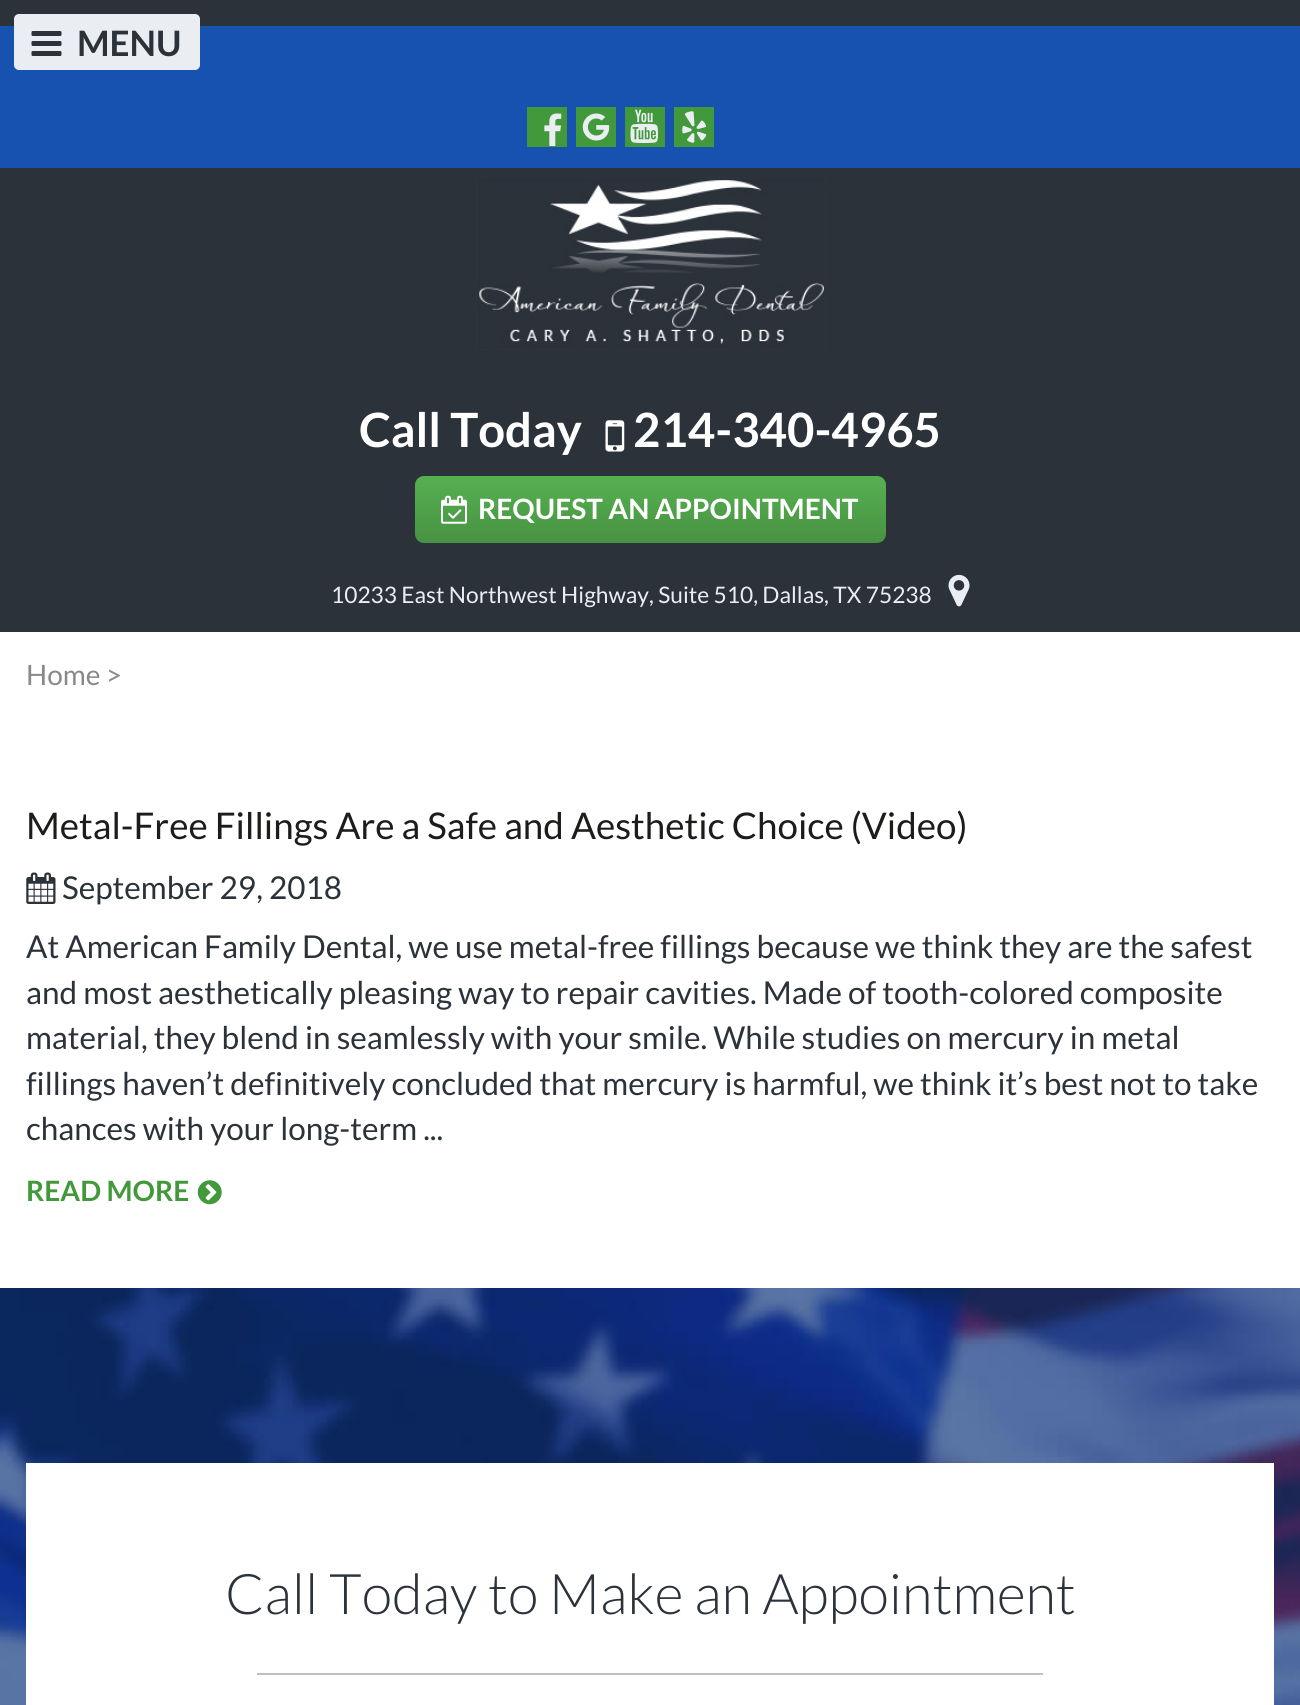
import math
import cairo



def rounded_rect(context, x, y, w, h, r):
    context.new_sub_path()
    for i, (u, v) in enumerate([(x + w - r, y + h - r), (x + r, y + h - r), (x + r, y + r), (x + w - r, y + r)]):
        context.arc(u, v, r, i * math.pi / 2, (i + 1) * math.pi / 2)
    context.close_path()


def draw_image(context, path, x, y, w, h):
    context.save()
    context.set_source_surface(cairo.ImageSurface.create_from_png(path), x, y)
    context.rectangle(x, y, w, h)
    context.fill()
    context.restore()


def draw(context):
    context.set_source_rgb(1, 1, 1)
    context.paint()
    context.set_source_rgb(44 / 255, 50 / 255, 57 / 255)
    context.rectangle(0, 0, 1300, 632)
    context.fill()
    context.set_source_rgb(24 / 255, 82 / 255, 176 / 255)
    context.rectangle(0, 26, 1300, 142)
    context.fill()
    context.set_source_rgb(234 / 255, 238 / 255, 243 / 255)
    rounded_rect(context, 14, 14, 186, 56, 5)
    context.fill()
    draw_image(context, "images/1.png", 31, 31, 31, 25)
    context.set_source_rgb(66 / 255, 153 / 255, 59 / 255)
    context.rectangle(527, 107, 40, 40)
    context.fill()
    draw_image(context, "images/2.png", 544, 113, 18, 33)
    context.rectangle(576, 107, 40, 40)
    context.fill()
    draw_image(context, "images/3.png", 582, 113, 28, 28)
    context.rectangle(625, 107, 40, 40)
    context.fill()
    draw_image(context, "images/4.png", 630, 109, 28, 34)
    context.rectangle(674, 107, 40, 40)
    context.fill()
    draw_image(context, "images/5.png", 682, 111, 25, 32)
    draw_image(context, "images/6.png", 476, 177, 350, 173)
    draw_image(context, "images/7.png", 605, 420, 20, 32)
    gradient = cairo.LinearGradient(650, 476, 650, 543)
    gradient.add_color_stop_rgba(0, 86 / 255, 177 / 255, 80 / 255, 1)
    gradient.add_color_stop_rgba(1, 72 / 255, 146 / 255, 67 / 255, 1)
    context.set_source(gradient)
    rounded_rect(context, 415, 476, 471, 67, 9)
    context.fill()
    draw_image(context, "images/8.png", 441, 495, 26, 29)
    draw_image(context, "images/9.png", 948, 574, 22, 33)
    draw_image(context, "images/10.png", 26, 872, 30, 32)
    draw_image(context, "images/11.png", 197, 1180, 25, 25)
    draw_image(context, "images/12.png", 0, 1288, 1300, 417)
    context.set_source_rgb(1, 1, 1)
    context.rectangle(26, 1463, 1248, 242)
    context.fill()
    context.set_source_rgb(192 / 255, 192 / 255, 192 / 255)
    context.rectangle(257, 1673, 786, 2)
    context.fill()
    context.select_font_face("Lato", cairo.FontSlant.NORMAL, cairo.FontWeight.BOLD)
    context.set_font_size(35)
    context.set_source_rgb(44 / 255, 50 / 255, 57 / 255)
    context.move_to(77, 56)
    context.show_text("MENU")
    context.set_font_size(47.25)
    context.set_source_rgb(1, 1, 1)
    context.move_to(359, 447)
    context.show_text("Call Today")
    context.move_to(633, 447)
    context.show_text("214-340-4965")
    context.set_font_size(28)
    context.move_to(478, 519)
    context.show_text("REQUEST AN APPOINTMENT")
    context.select_font_face("Lato")
    context.set_font_size(22.75)
    context.set_source_rgb(234 / 255, 238 / 255, 243 / 255)
    context.move_to(331, 603)
    context.show_text("10233 East Northwest Highway, Suite 510, Dallas, TX 75238")
    context.set_font_size(28)
    context.set_source_rgb(137 / 255, 137 / 255, 137 / 255)
    context.move_to(26, 685)
    context.show_text("Home >")
    context.set_font_size(36.75)
    context.set_source_rgb(28 / 255, 28 / 255, 26 / 255)
    context.move_to(26, 839)
    context.show_text("Metal-Free Fillings Are a Safe and Aesthetic Choice (Video)")
    context.set_font_size(31.5)
    context.set_source_rgb(44 / 255, 50 / 255, 57 / 255)
    context.move_to(62, 899)
    context.show_text("September 29, 2018")
    context.move_to(26, 958)
    context.show_text("At American Family Dental, we use metal-free fillings because we think they are the safest")
    context.move_to(26, 1004)
    context.show_text("and most aesthetically pleasing way to repair cavities. Made of tooth-colored composite")
    context.move_to(26, 1049)
    context.show_text("material, they blend in seamlessly with your smile. While studies on mercury in metal")
    context.move_to(26, 1095)
    context.show_text("fillings haven’t definitively concluded that mercury is harmful, we think it’s best not to take")
    context.move_to(26, 1140)
    context.show_text("chances with your long-term ...")
    context.select_font_face("Lato", cairo.FontSlant.NORMAL, cairo.FontWeight.BOLD)
    context.set_font_size(28)
    context.set_source_rgb(66 / 255, 153 / 255, 59 / 255)
    context.move_to(26, 1201)
    context.show_text("READ MORE")
    context.select_font_face("Lato Light")
    context.set_font_size(56)
    context.set_source_rgb(44 / 255, 50 / 255, 57 / 255)
    context.move_to(225, 1614)
    context.show_text("Call Today to Make an Appointment")


surface = cairo.ImageSurface(cairo.Format.RGB24, 1300, 1705)
context = cairo.Context(surface)
options = cairo.FontOptions()
options.set_hint_metrics(cairo.HintMetrics.OFF)
options.set_hint_style(cairo.HintStyle.NONE)
context.set_font_options(options)
context.set_miter_limit(4)
draw(context)
surface.write_to_png("out.png")
